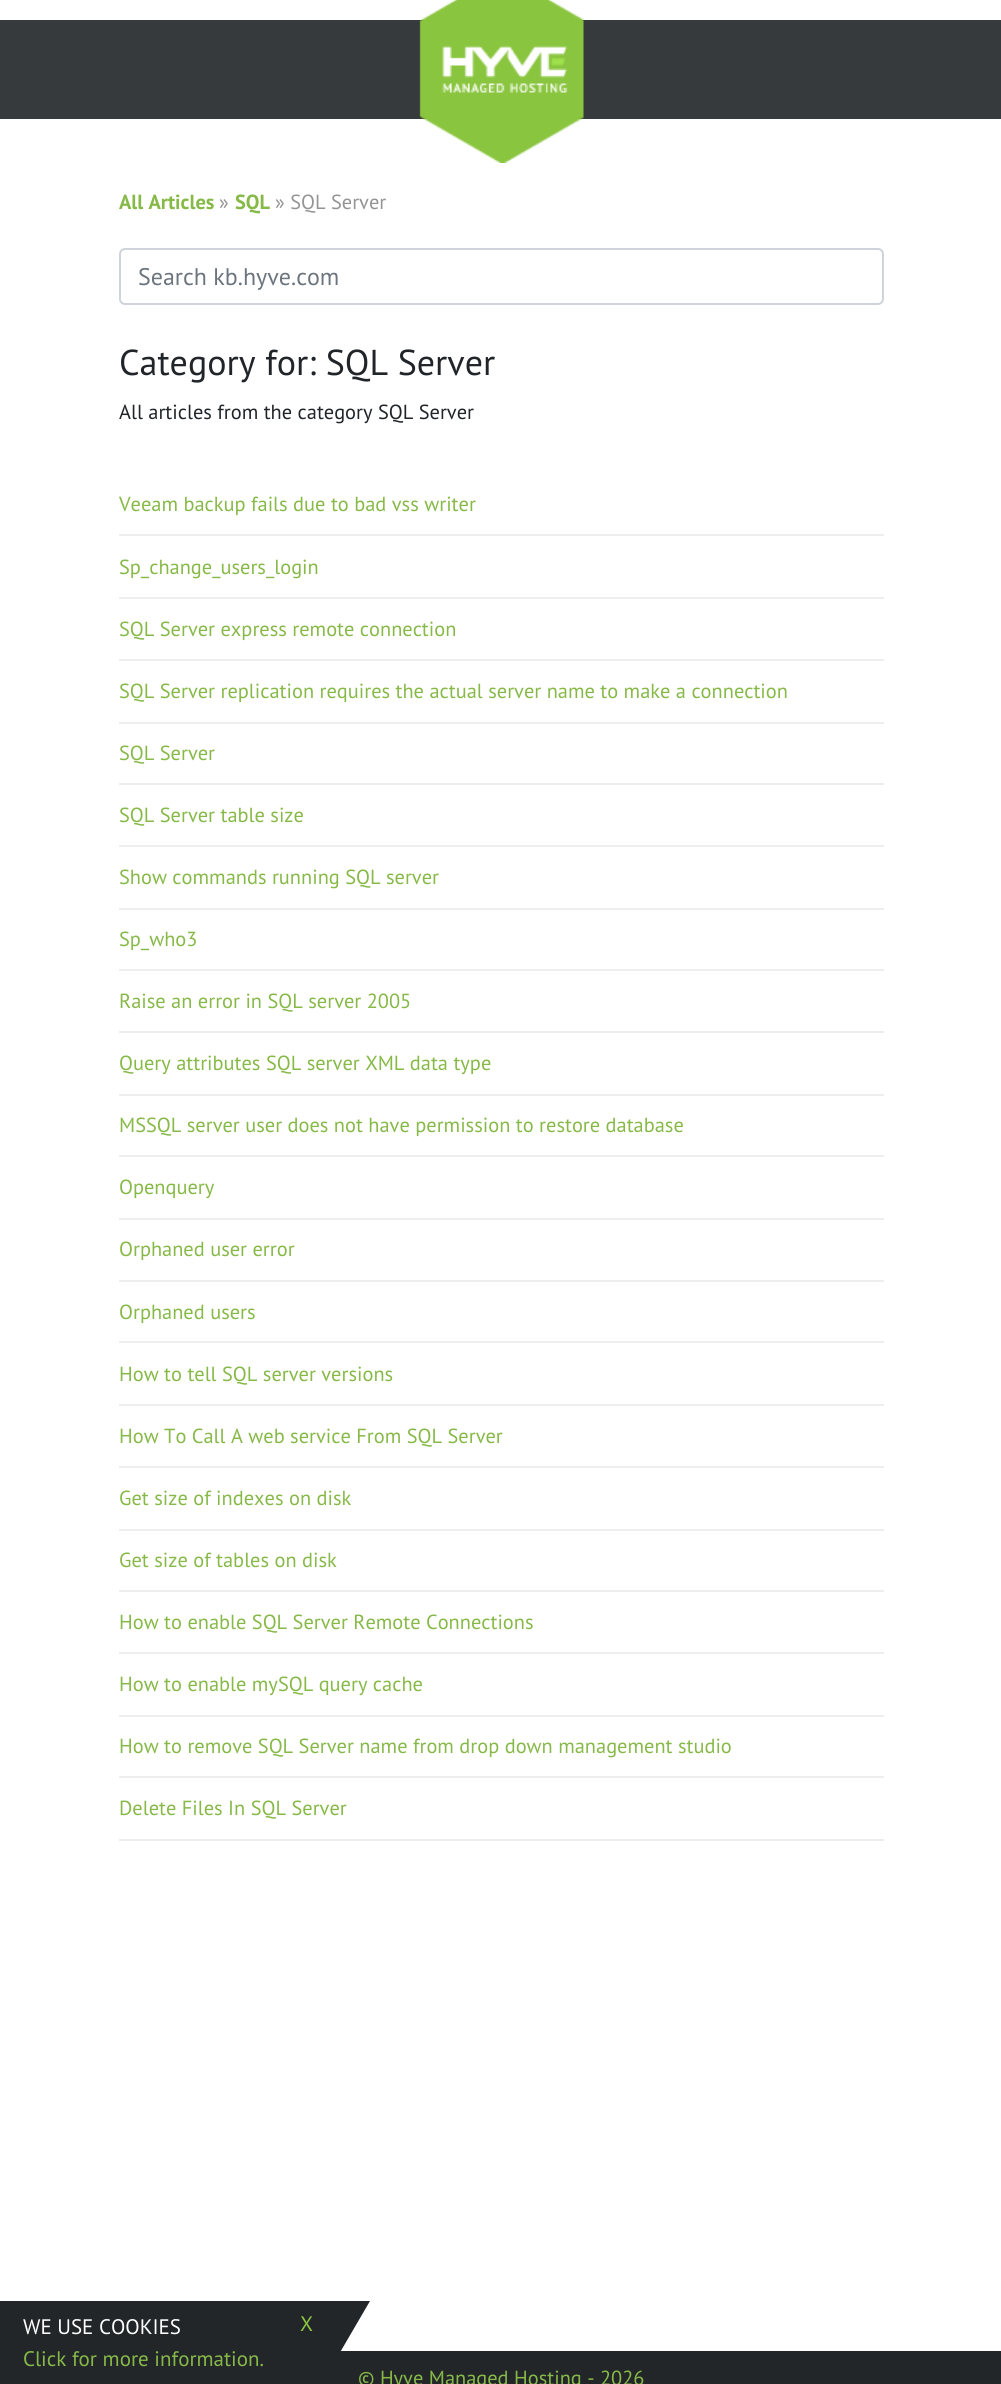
import math
import cairo



def rounded_rect(context, x, y, w, h, r):
    context.new_sub_path()
    for i, (u, v) in enumerate([(x + w - r, y + h - r), (x + r, y + h - r), (x + r, y + r), (x + w - r, y + r)]):
        context.arc(u, v, r, i * math.pi / 2, (i + 1) * math.pi / 2)
    context.close_path()


def draw_image(context, path, x, y, w, h):
    context.save()
    context.set_source_surface(cairo.ImageSurface.create_from_png(path), x, y)
    context.rectangle(x, y, w, h)
    context.fill()
    context.restore()


def draw(context):
    context.set_source_rgb(1, 1, 1)
    context.paint()
    context.set_source_rgb(54 / 255, 58 / 255, 60 / 255)
    context.rectangle(0, 20, 1001, 99)
    context.fill()
    draw_image(context, "images/1.png", 419, 0, 165, 163)
    rounded_rect(context, 120, 249, 763, 55, 5)
    context.set_source_rgb(206 / 255, 212 / 255, 218 / 255)
    context.stroke()
    context.set_source_rgb(238 / 255, 238 / 255, 238 / 255)
    context.rectangle(119, 534, 765, 2)
    context.fill()
    context.rectangle(119, 597, 765, 2)
    context.fill()
    context.rectangle(119, 659, 765, 2)
    context.fill()
    context.rectangle(119, 722, 765, 2)
    context.fill()
    context.rectangle(119, 783, 765, 2)
    context.fill()
    context.rectangle(119, 845, 765, 2)
    context.fill()
    context.rectangle(119, 908, 765, 2)
    context.fill()
    context.rectangle(119, 969, 765, 2)
    context.fill()
    context.rectangle(119, 1031, 765, 2)
    context.fill()
    context.rectangle(119, 1094, 765, 2)
    context.fill()
    context.rectangle(119, 1155, 765, 2)
    context.fill()
    context.rectangle(119, 1218, 765, 2)
    context.fill()
    context.rectangle(119, 1280, 765, 2)
    context.fill()
    context.rectangle(119, 1341, 765, 2)
    context.fill()
    context.rectangle(119, 1404, 765, 2)
    context.fill()
    context.rectangle(119, 1466, 765, 2)
    context.fill()
    context.rectangle(119, 1529, 765, 2)
    context.fill()
    context.rectangle(119, 1590, 765, 2)
    context.fill()
    context.rectangle(119, 1652, 765, 2)
    context.fill()
    context.rectangle(119, 1715, 765, 2)
    context.fill()
    context.rectangle(119, 1776, 765, 2)
    context.fill()
    context.rectangle(119, 1839, 765, 2)
    context.fill()
    context.set_source_rgb(34 / 255, 38 / 255, 41 / 255)
    context.rectangle(0, 2301, 84, 83)
    context.fill()
    context.rectangle(321, 2351, 680, 33)
    context.fill()
    context.select_font_face("PT Sans", cairo.FontSlant.NORMAL, cairo.FontWeight.BOLD)
    context.set_font_size(20.4)
    context.set_source_rgb(135 / 255, 185 / 255, 72 / 255)
    context.move_to(119, 209)
    context.show_text("All Articles")
    context.select_font_face("PT Sans")
    context.set_source_rgb(148 / 255, 148 / 255, 148 / 255)
    context.move_to(219, 209)
    context.show_text("»")
    context.select_font_face("PT Sans", cairo.FontSlant.NORMAL, cairo.FontWeight.BOLD)
    context.set_source_rgb(135 / 255, 185 / 255, 72 / 255)
    context.move_to(235, 209)
    context.show_text("SQL")
    context.select_font_face("PT Sans")
    context.set_source_rgb(148 / 255, 148 / 255, 148 / 255)
    context.move_to(275, 209)
    context.show_text("» SQL Server")
    context.set_font_size(24)
    context.set_source_rgb(108 / 255, 117 / 255, 125 / 255)
    context.move_to(138, 285)
    context.show_text("Search kb.hyve.com")
    context.set_font_size(36)
    context.set_source_rgb(33 / 255, 37 / 255, 41 / 255)
    context.move_to(119, 375)
    context.show_text("Category for: SQL Server")
    context.set_font_size(20.4)
    context.move_to(119, 419)
    context.show_text("All articles from the category SQL Server")
    context.set_source_rgb(135 / 255, 185 / 255, 72 / 255)
    context.move_to(119, 511)
    context.show_text("Veeam backup fails due to bad vss writer")
    context.move_to(119, 574)
    context.show_text("Sp_change_users_login")
    context.move_to(119, 636)
    context.show_text("SQL Server express remote connection")
    context.move_to(119, 698)
    context.show_text("SQL Server replication requires the actual server name to make a connection")
    context.move_to(119, 760)
    context.show_text("SQL Server")
    context.move_to(119, 822)
    context.show_text("SQL Server table size")
    context.move_to(119, 884)
    context.show_text("Show commands running SQL server")
    context.move_to(119, 946)
    context.show_text("Sp_who3")
    context.move_to(119, 1008)
    context.show_text("Raise an error in SQL server 2005")
    context.move_to(119, 1070)
    context.show_text("Query attributes SQL server XML data type")
    context.move_to(119, 1132)
    context.show_text("MSSQL server user does not have permission to restore database")
    context.move_to(119, 1194)
    context.show_text("Openquery")
    context.move_to(119, 1256)
    context.show_text("Orphaned user error")
    context.move_to(119, 1319)
    context.show_text("Orphaned users")
    context.move_to(119, 1381)
    context.show_text("How to tell SQL server versions")
    context.move_to(119, 1443)
    context.show_text("How To Call A web service From SQL Server")
    context.move_to(119, 1505)
    context.show_text("Get size of indexes on disk")
    context.move_to(119, 1567)
    context.show_text("Get size of tables on disk")
    context.move_to(119, 1629)
    context.show_text("How to enable SQL Server Remote Connections")
    context.move_to(119, 1691)
    context.show_text("How to enable mySQL query cache")
    context.move_to(119, 1753)
    context.show_text("How to remove SQL Server name from drop down management studio")
    context.move_to(119, 1815)
    context.show_text("Delete Files In SQL Server")
    context.move_to(358, 2385)
    context.show_text("© Hyve Managed Hosting - 2026")
    context.set_source_rgb(34 / 255, 38 / 255, 41 / 255)
    context.new_path()
    context.move_to(84, 2301)
    context.line_to(370, 2301)
    context.line_to(321, 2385)
    context.line_to(35, 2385)
    context.close_path()
    context.fill()
    context.set_font_size(21)
    context.set_source_rgb(138 / 255, 197 / 255, 63 / 255)
    context.move_to(300, 2331)
    context.show_text("X")
    context.set_source_rgb(135 / 255, 185 / 255, 72 / 255)
    context.move_to(23, 2366)
    context.show_text("Click for more information.")
    context.set_source_rgb(1, 1, 1)
    context.move_to(23, 2334)
    context.show_text("WE USE COOKIES")


surface = cairo.ImageSurface(cairo.Format.RGB24, 1001, 2384)
context = cairo.Context(surface)
options = cairo.FontOptions()
options.set_hint_metrics(cairo.HintMetrics.OFF)
options.set_hint_style(cairo.HintStyle.NONE)
context.set_font_options(options)
context.set_miter_limit(4)
draw(context)
surface.write_to_png("out.png")
